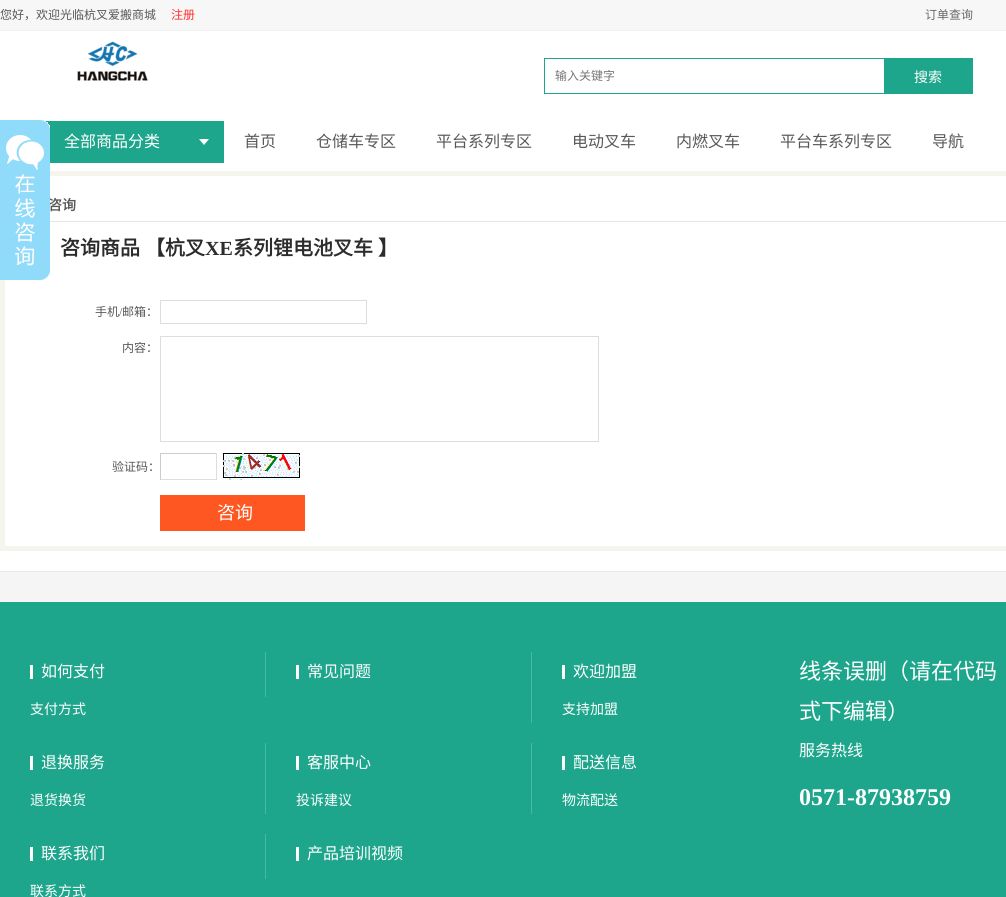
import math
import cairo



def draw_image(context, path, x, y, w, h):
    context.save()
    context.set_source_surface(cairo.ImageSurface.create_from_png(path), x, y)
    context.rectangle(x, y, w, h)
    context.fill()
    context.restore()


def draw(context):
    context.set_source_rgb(1, 1, 1)
    context.paint()
    context.set_source_rgb(247 / 255, 247 / 255, 247 / 255)
    context.rectangle(0, 0, 1006, 30)
    context.fill()
    context.set_source_rgb(242 / 255, 242 / 255, 242 / 255)
    context.rectangle(0, 30, 1006, 1)
    context.fill()
    draw_image(context, "images/1.png", 77, 41, 71, 40)
    context.rectangle(544.5, 58.5, 428, 35)
    context.set_source_rgb(29 / 255, 166 / 255, 140 / 255)
    context.set_line_width(1)
    context.stroke()
    context.rectangle(884, 59, 88, 34)
    context.fill()
    context.rectangle(46, 121, 178, 42)
    context.fill()
    context.set_source_rgb(1, 1, 1)
    context.new_path()
    context.move_to(199, 139)
    context.line_to(209, 139)
    context.line_to(204, 145)
    context.close_path()
    context.fill()
    context.rectangle(2.5, 173.5, 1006, 375)
    context.set_source_rgb(245 / 255, 245 / 255, 237 / 255)
    context.set_line_width(5)
    context.stroke()
    context.set_source_rgb(231 / 255, 231 / 255, 231 / 255)
    context.rectangle(50, 221, 956, 1)
    context.fill()
    context.rectangle(160.5, 300.5, 206, 23)
    context.set_source_rgb(221 / 255, 221 / 255, 221 / 255)
    context.set_line_width(1)
    context.stroke()
    context.rectangle(160.5, 336.5, 438, 105)
    context.stroke()
    context.set_source_rgb(204 / 255, 204 / 255, 204 / 255)
    context.rectangle(160, 453, 57, 1)
    context.fill()
    context.set_source_rgb(221 / 255, 221 / 255, 221 / 255)
    context.rectangle(216, 453, 1, 27)
    context.fill()
    context.rectangle(160, 479, 57, 1)
    context.fill()
    context.set_source_rgb(204 / 255, 204 / 255, 204 / 255)
    context.rectangle(160, 453, 1, 27)
    context.fill()
    draw_image(context, "images/3.png", 223, 453, 77, 27)
    context.set_source_rgb(254 / 255, 87 / 255, 34 / 255)
    context.rectangle(160, 495, 145, 36)
    context.fill()
    context.set_source_rgb(245 / 255, 245 / 255, 245 / 255)
    context.rectangle(0, 572, 1006, 30)
    context.fill()
    context.set_source_rgb(233 / 255, 233 / 255, 233 / 255)
    context.rectangle(0, 571, 1006, 1)
    context.fill()
    context.set_source_rgb(29 / 255, 166 / 255, 140 / 255)
    context.rectangle(0, 602, 1006, 295)
    context.fill()
    context.set_source_rgb(1, 1, 1)
    context.rectangle(30, 665, 3, 14)
    context.fill()
    context.set_source_rgb(74 / 255, 184 / 255, 163 / 255)
    context.rectangle(265, 652, 1, 45)
    context.fill()
    context.set_source_rgb(1, 1, 1)
    context.rectangle(296, 665, 3, 14)
    context.fill()
    context.set_source_rgb(74 / 255, 184 / 255, 163 / 255)
    context.rectangle(531, 652, 1, 71)
    context.fill()
    context.set_source_rgb(1, 1, 1)
    context.rectangle(562, 665, 3, 14)
    context.fill()
    context.rectangle(30, 756, 3, 14)
    context.fill()
    context.set_source_rgb(74 / 255, 184 / 255, 163 / 255)
    context.rectangle(265, 743, 1, 71)
    context.fill()
    context.set_source_rgb(1, 1, 1)
    context.rectangle(296, 756, 3, 14)
    context.fill()
    context.set_source_rgb(74 / 255, 184 / 255, 163 / 255)
    context.rectangle(531, 743, 1, 71)
    context.fill()
    context.set_source_rgb(1, 1, 1)
    context.rectangle(562, 756, 3, 14)
    context.fill()
    context.rectangle(30, 847, 3, 14)
    context.fill()
    context.set_source_rgb(74 / 255, 184 / 255, 163 / 255)
    context.rectangle(265, 834, 1, 45)
    context.fill()
    context.set_source_rgb(1, 1, 1)
    context.rectangle(296, 847, 3, 14)
    context.fill()
    context.select_font_face("Noto Sans CJK SC")
    context.set_font_size(12)
    context.set_source_rgb(88 / 255, 88 / 255, 88 / 255)
    context.move_to(0, 19)
    context.show_text("您好，欢迎光临杭叉爱搬商城")
    context.set_source_rgb(1, 46 / 255, 47 / 255)
    context.move_to(171, 19)
    context.show_text("注册")
    context.set_source_rgb(104 / 255, 104 / 255, 104 / 255)
    context.move_to(925, 19)
    context.show_text("订单查询")
    context.set_source_rgb(117 / 255, 117 / 255, 117 / 255)
    context.move_to(555, 80)
    context.show_text("输入关键字")
    context.set_font_size(14)
    context.set_source_rgb(1, 1, 1)
    context.move_to(914, 82)
    context.show_text("搜索")
    context.set_font_size(16)
    context.move_to(64, 147)
    context.show_text("全部商品分类")
    context.set_source_rgb(88 / 255, 88 / 255, 88 / 255)
    context.move_to(244, 147)
    context.show_text("首页")
    context.move_to(316, 147)
    context.show_text("仓储车专区")
    context.move_to(436, 147)
    context.show_text("平台系列专区")
    context.move_to(572, 147)
    context.show_text("电动叉车")
    context.move_to(676, 147)
    context.show_text("内燃叉车")
    context.move_to(780, 147)
    context.show_text("平台车系列专区")
    context.move_to(932, 147)
    context.show_text("导航")
    context.select_font_face("Noto Sans CJK SC", cairo.FontSlant.NORMAL, cairo.FontWeight.BOLD)
    context.set_font_size(14)
    context.move_to(48, 210)
    context.show_text("咨询")
    draw_image(context, "images/2.png", 0, 120, 50, 160)
    context.set_font_size(20)
    context.set_source_rgb(44 / 255, 44 / 255, 44 / 255)
    context.move_to(60, 255)
    context.show_text("咨询商品")
    context.move_to(145, 255)
    context.show_text("【杭叉")
    context.select_font_face("Liberation Serif", cairo.FontSlant.NORMAL, cairo.FontWeight.BOLD)
    context.move_to(205, 255)
    context.show_text("XE")
    context.select_font_face("Noto Sans CJK SC", cairo.FontSlant.NORMAL, cairo.FontWeight.BOLD)
    context.move_to(233, 255)
    context.show_text("系列锂电池叉车")
    context.move_to(378, 255)
    context.show_text("】")
    context.select_font_face("Noto Sans CJK SC")
    context.set_font_size(12)
    context.set_source_rgb(88 / 255, 88 / 255, 88 / 255)
    context.move_to(95, 316)
    context.show_text("手机")
    context.select_font_face("Liberation Serif")
    context.move_to(119, 316)
    context.show_text("/")
    context.select_font_face("Noto Sans CJK SC")
    context.move_to(122, 316)
    context.show_text("邮箱：")
    context.move_to(122, 352)
    context.show_text("内容：")
    context.move_to(112, 471)
    context.show_text("验证码：")
    context.set_font_size(18)
    context.set_source_rgb(1, 1, 1)
    context.move_to(217, 519)
    context.show_text("咨询")
    context.set_font_size(16)
    context.move_to(41, 677)
    context.show_text("如何支付")
    context.set_font_size(14)
    context.move_to(30, 714)
    context.show_text("支付方式")
    context.set_font_size(16)
    context.move_to(307, 677)
    context.show_text("常见问题")
    context.move_to(573, 677)
    context.show_text("欢迎加盟")
    context.set_font_size(14)
    context.move_to(562, 714)
    context.show_text("支持加盟")
    context.set_font_size(16)
    context.move_to(41, 768)
    context.show_text("退换服务")
    context.set_font_size(14)
    context.move_to(30, 805)
    context.show_text("退货换货")
    context.set_font_size(16)
    context.move_to(307, 768)
    context.show_text("客服中心")
    context.set_font_size(14)
    context.move_to(296, 805)
    context.show_text("投诉建议")
    context.set_font_size(16)
    context.move_to(573, 768)
    context.show_text("配送信息")
    context.set_font_size(14)
    context.move_to(562, 805)
    context.show_text("物流配送")
    context.set_font_size(16)
    context.move_to(41, 859)
    context.show_text("联系我们")
    context.set_font_size(14)
    context.move_to(30, 896)
    context.show_text("联系方式")
    context.set_font_size(16)
    context.move_to(307, 859)
    context.show_text("产品培训视频")
    context.set_font_size(22)
    context.move_to(799, 679)
    context.show_text("线条误删（请在代码")
    context.move_to(799, 719)
    context.show_text("式下编辑）")
    context.set_font_size(16)
    context.move_to(799, 756)
    context.show_text("服务热线")
    context.select_font_face("Liberation Serif", cairo.FontSlant.NORMAL, cairo.FontWeight.BOLD)
    context.set_font_size(24)
    context.move_to(799, 805)
    context.show_text("0571-87938759")


surface = cairo.ImageSurface(cairo.Format.RGB24, 1006, 897)
context = cairo.Context(surface)
options = cairo.FontOptions()
options.set_hint_metrics(cairo.HintMetrics.OFF)
options.set_hint_style(cairo.HintStyle.NONE)
context.set_font_options(options)
context.set_miter_limit(4)
draw(context)
surface.write_to_png("out.png")
